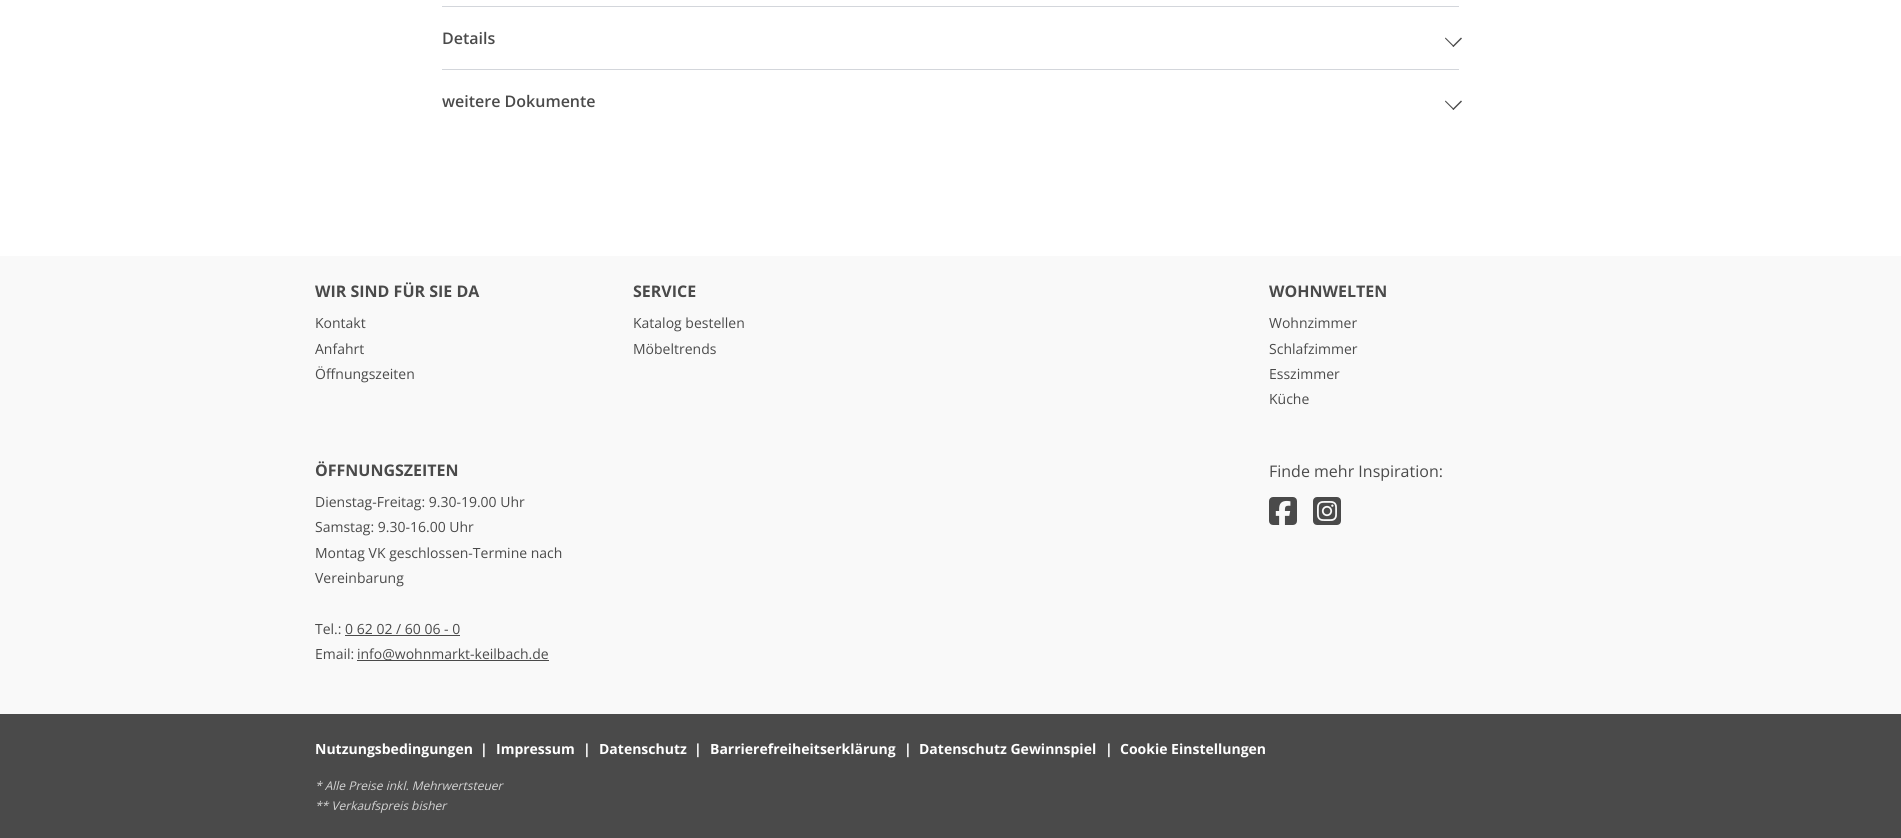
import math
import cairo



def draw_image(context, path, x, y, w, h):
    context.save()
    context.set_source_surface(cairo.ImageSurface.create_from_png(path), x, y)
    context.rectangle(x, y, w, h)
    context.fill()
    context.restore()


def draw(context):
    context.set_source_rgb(1, 1, 1)
    context.paint()
    context.set_source_rgb(211 / 255, 214 / 255, 219 / 255)
    context.rectangle(442, 6, 1017, 1)
    context.fill()
    context.set_source_rgb(74 / 255, 74 / 255, 74 / 255)
    context.new_path()
    context.move_to(1452.5, 46)
    context.line_to(1461, 37.5)
    context.line_to(1462, 38.5)
    context.line_to(1453.5, 47)
    context.close_path()
    context.fill()
    context.new_path()
    context.move_to(1445, 38.5)
    context.line_to(1445.5, 37.5)
    context.line_to(1454, 46)
    context.line_to(1453.5, 47)
    context.close_path()
    context.fill()
    context.set_source_rgb(211 / 255, 214 / 255, 219 / 255)
    context.rectangle(442, 69, 1017, 1)
    context.fill()
    context.set_source_rgb(74 / 255, 74 / 255, 74 / 255)
    context.new_path()
    context.move_to(1452.5, 109)
    context.line_to(1461, 100.5)
    context.line_to(1462, 101.5)
    context.line_to(1453.5, 110)
    context.close_path()
    context.fill()
    context.new_path()
    context.move_to(1445, 101.5)
    context.line_to(1445.5, 100.5)
    context.line_to(1454, 109)
    context.line_to(1453.5, 110)
    context.close_path()
    context.fill()
    context.set_source_rgb(249 / 255, 249 / 255, 249 / 255)
    context.rectangle(0, 256, 1901, 458)
    context.fill()
    context.set_source_rgb(74 / 255, 74 / 255, 74 / 255)
    context.rectangle(345, 635, 115, 1)
    context.fill()
    context.rectangle(357, 660, 192, 1)
    context.fill()
    draw_image(context, "images/1.png", 1269, 497, 28, 28)
    draw_image(context, "images/2.png", 1313, 497, 28, 28)
    context.rectangle(0, 714, 1901, 124)
    context.fill()
    context.select_font_face("Open Sans SemiBold")
    context.set_font_size(16)
    context.move_to(442, 44)
    context.show_text("Details")
    context.move_to(442, 107)
    context.show_text("weitere Dokumente")
    context.select_font_face("Open Sans", cairo.FontSlant.NORMAL, cairo.FontWeight.BOLD)
    context.move_to(315, 297)
    context.show_text("WIR SIND FÜR SIE DA")
    context.select_font_face("Open Sans")
    context.set_font_size(14)
    context.move_to(315, 328)
    context.show_text("Kontakt")
    context.move_to(315, 354)
    context.show_text("Anfahrt")
    context.move_to(315, 379)
    context.show_text("Öffnungszeiten")
    context.select_font_face("Open Sans", cairo.FontSlant.NORMAL, cairo.FontWeight.BOLD)
    context.set_font_size(16)
    context.move_to(633, 297)
    context.show_text("SERVICE")
    context.select_font_face("Open Sans")
    context.set_font_size(14)
    context.move_to(633, 328)
    context.show_text("Katalog bestellen")
    context.move_to(633, 354)
    context.show_text("Möbeltrends")
    context.select_font_face("Open Sans", cairo.FontSlant.NORMAL, cairo.FontWeight.BOLD)
    context.set_font_size(16)
    context.move_to(1269, 297)
    context.show_text("WOHNWELTEN")
    context.select_font_face("Open Sans")
    context.set_font_size(14)
    context.move_to(1269, 328)
    context.show_text("Wohnzimmer")
    context.move_to(1269, 354)
    context.show_text("Schlafzimmer")
    context.move_to(1269, 379)
    context.show_text("Esszimmer")
    context.move_to(1269, 404)
    context.show_text("Küche")
    context.select_font_face("Open Sans", cairo.FontSlant.NORMAL, cairo.FontWeight.BOLD)
    context.set_font_size(16)
    context.move_to(315, 476)
    context.show_text("ÖFFNUNGSZEITEN")
    context.select_font_face("Open Sans")
    context.set_font_size(14)
    context.move_to(315, 507)
    context.show_text("Dienstag-Freitag: 9.30-19.00 Uhr")
    context.move_to(315, 532)
    context.show_text("Samstag: 9.30-16.00 Uhr")
    context.move_to(315, 558)
    context.show_text("Montag VK geschlossen-Termine nach")
    context.move_to(315, 583)
    context.show_text("Vereinbarung")
    context.move_to(315, 634)
    context.show_text("Tel.: 0 62 02 / 60 06 - 0")
    context.move_to(315, 659)
    context.show_text("Email:")
    context.move_to(357, 659)
    context.show_text("info@wohnmarkt-keilbach.de")
    context.set_font_size(16)
    context.move_to(1269, 477)
    context.show_text("Finde mehr Inspiration:")
    context.select_font_face("Open Sans", cairo.FontSlant.NORMAL, cairo.FontWeight.BOLD)
    context.set_font_size(14)
    context.set_source_rgb(1, 1, 1)
    context.move_to(315, 754)
    context.show_text("Nutzungsbedingungen")
    context.move_to(480, 754)
    context.show_text("|")
    context.move_to(496, 754)
    context.show_text("Impressum")
    context.move_to(583, 754)
    context.show_text("|")
    context.move_to(599, 754)
    context.show_text("Datenschutz")
    context.move_to(694, 754)
    context.show_text("|")
    context.move_to(710, 754)
    context.show_text("Barrierefreiheitserklärung")
    context.move_to(904, 754)
    context.show_text("|")
    context.move_to(919, 754)
    context.show_text("Datenschutz Gewinnspiel")
    context.move_to(1105, 754)
    context.show_text("|")
    context.move_to(1120, 754)
    context.show_text("Cookie Einstellungen")
    context.select_font_face("Open Sans", cairo.FontSlant.ITALIC)
    context.set_font_size(12)
    context.set_source_rgb(212 / 255, 212 / 255, 212 / 255)
    context.move_to(315, 790)
    context.show_text("* Alle Preise inkl. Mehrwertsteuer")
    context.move_to(315, 810)
    context.show_text("** Verkaufspreis bisher")


surface = cairo.ImageSurface(cairo.Format.RGB24, 1901, 838)
context = cairo.Context(surface)
options = cairo.FontOptions()
options.set_hint_metrics(cairo.HintMetrics.OFF)
options.set_hint_style(cairo.HintStyle.NONE)
context.set_font_options(options)
context.set_miter_limit(4)
draw(context)
surface.write_to_png("out.png")
